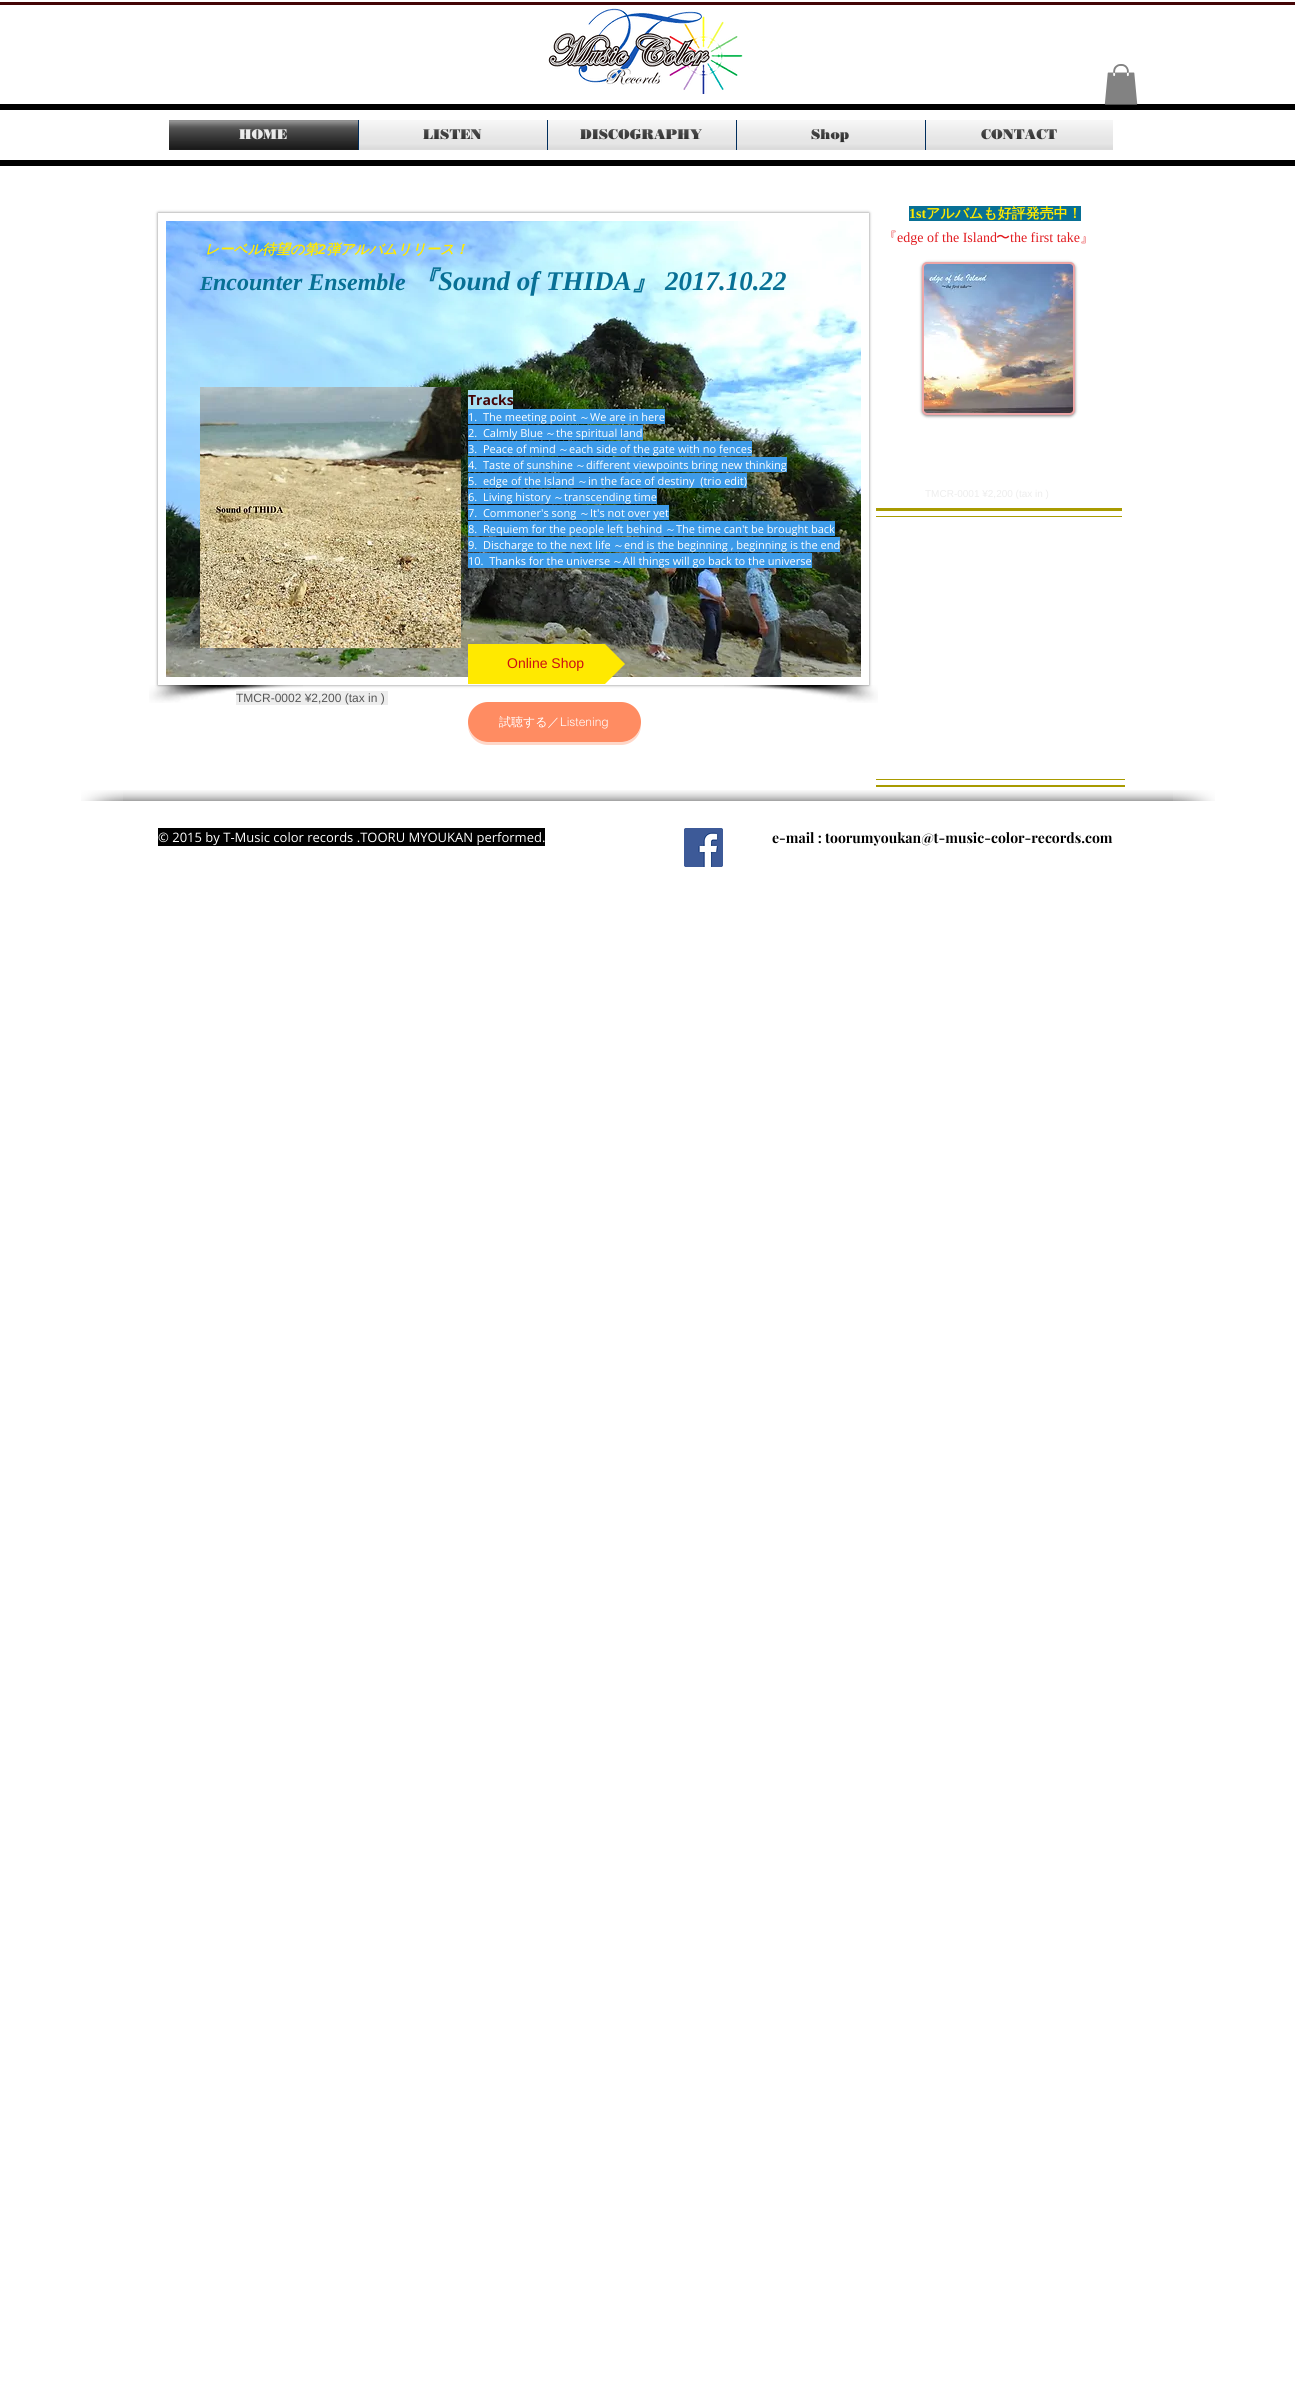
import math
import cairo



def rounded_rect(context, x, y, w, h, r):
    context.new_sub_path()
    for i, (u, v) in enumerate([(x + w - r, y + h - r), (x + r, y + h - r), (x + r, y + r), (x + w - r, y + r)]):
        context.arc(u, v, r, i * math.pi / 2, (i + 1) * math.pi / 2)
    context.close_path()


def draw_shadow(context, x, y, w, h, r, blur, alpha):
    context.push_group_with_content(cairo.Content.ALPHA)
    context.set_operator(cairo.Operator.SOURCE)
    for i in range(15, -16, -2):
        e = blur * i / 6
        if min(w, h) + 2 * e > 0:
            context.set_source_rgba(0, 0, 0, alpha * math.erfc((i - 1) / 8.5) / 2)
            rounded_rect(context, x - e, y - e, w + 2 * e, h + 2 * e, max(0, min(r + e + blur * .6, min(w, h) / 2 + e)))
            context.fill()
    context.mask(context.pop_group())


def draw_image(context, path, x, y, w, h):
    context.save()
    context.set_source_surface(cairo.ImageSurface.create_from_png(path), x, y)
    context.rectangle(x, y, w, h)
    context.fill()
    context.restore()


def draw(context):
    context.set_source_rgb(1, 1, 1)
    context.paint()
    context.rectangle(-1.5, 3.5, 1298, 108)
    context.set_source_rgb(68 / 255, 5 / 255, 6 / 255)
    context.set_line_width(3)
    context.stroke()
    draw_image(context, "images/1.png", 548, 8, 195, 86)
    context.set_source_rgb(0, 0, 0)
    context.rectangle(0, 104, 1295, 6)
    context.fill()
    draw_image(context, "images/2.png", 1104, 64, 34, 41)
    context.rectangle(0, 160, 1295, 6)
    context.fill()
    context.set_source_rgb(1, 1, 1)
    context.rectangle(0, 110, 1295, 3)
    context.fill()
    context.set_source_rgb(0, 0, 0)
    context.rectangle(169, 120, 189, 30)
    context.fill()
    context.set_source_rgb(0, 46 / 255, 93 / 255)
    context.rectangle(358, 120, 1, 30)
    context.fill()
    context.rectangle(547, 120, 1, 30)
    context.fill()
    context.rectangle(736, 120, 1, 30)
    context.fill()
    context.rectangle(925, 120, 1, 30)
    context.fill()
    context.save()
    context.set_fill_rule(cairo.FillRule.EVEN_ODD)
    context.new_path()
    context.move_to(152, 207)
    context.line_to(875, 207)
    context.line_to(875, 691)
    context.line_to(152, 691)
    context.close_path()
    context.move_to(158, 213)
    context.line_to(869, 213)
    context.line_to(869, 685)
    context.line_to(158, 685)
    context.close_path()
    context.clip()
    context.set_source_rgb(0, 0, 0)
    draw_shadow(context, 158, 213, 711, 472, 0, 1.5, 0.5)
    context.restore()
    draw_image(context, "images/13.png", 166, 221, 695, 456)
    draw_image(context, "images/14.png", 149, 685, 154, 18)
    draw_image(context, "images/15.png", 724, 685, 154, 18)
    context.set_source_rgb(8 / 255, 112 / 255, 149 / 255)
    context.rectangle(909, 206, 172, 15)
    context.fill()
    context.set_source_rgb(0, 0, 0)
    draw_shadow(context, 922, 263, 153, 153, 5, 1.5, 0.5)
    context.set_source_rgb(237 / 255, 165 / 255, 166 / 255)
    rounded_rect(context, 923, 263, 151, 151, 4)
    context.fill_preserve()
    context.set_line_width(2)
    context.stroke()
    draw_image(context, "images/16.png", 924, 264, 149, 149)
    draw_image(context, "images/17.png", 200, 387, 261, 261)
    context.set_source_rgb(168 / 255, 224 / 255, 244 / 255)
    context.rectangle(468, 390, 45, 19)
    context.fill()
    context.set_source_rgb(61 / 255, 155 / 255, 233 / 255)
    context.rectangle(468, 409, 197, 15)
    context.fill()
    context.rectangle(468, 425, 175, 15)
    context.fill()
    context.rectangle(468, 441, 284, 15)
    context.fill()
    context.rectangle(468, 457, 319, 15)
    context.fill()
    context.rectangle(468, 473, 279, 15)
    context.fill()
    context.rectangle(468, 489, 189, 15)
    context.fill()
    context.rectangle(468, 505, 201, 15)
    context.fill()
    context.rectangle(468, 521, 367, 15)
    context.fill()
    context.rectangle(468, 537, 372, 15)
    context.fill()
    context.rectangle(468, 553, 344, 15)
    context.fill()
    context.set_source_rgb(169 / 255, 155 / 255, 0)
    context.rectangle(876, 508, 246, 3)
    context.fill()
    context.rectangle(876, 516, 246, 1)
    context.fill()
    context.set_source_rgb(1, 233 / 255, 0)
    context.rectangle(468, 644, 107, 40)
    context.fill()
    context.save()
    context.rectangle(468, 644, 157, 40)
    context.clip()
    context.new_path()
    context.move_to(625, 664)
    context.line_to(575, 664)
    context.line_to(575, 614)
    context.close_path()
    context.move_to(575, 664)
    context.line_to(625, 664)
    context.line_to(575, 714)
    context.close_path()
    context.fill()
    context.restore()
    context.set_source_rgb(237 / 255, 237 / 255, 237 / 255)
    context.rectangle(236, 691, 152, 14)
    context.fill()
    context.set_source_rgb(1, 215 / 255, 200 / 255)
    context.new_path()
    context.move_to(468, 724)
    context.line_to(468, 725)
    context.curve_to(468, 736, 477, 745, 488, 745)
    context.line_to(621, 745)
    context.curve_to(632, 745, 641, 736, 641, 725)
    context.line_to(641, 724)
    context.curve_to(640, 734, 632, 742, 621, 742)
    context.line_to(488, 742)
    context.curve_to(477, 742, 469, 734, 468, 724)
    context.close_path()
    context.fill()
    context.set_source_rgb(1, 140 / 255, 98 / 255)
    rounded_rect(context, 468, 702, 173, 40, 20)
    context.fill()
    context.set_source_rgb(169 / 255, 155 / 255, 0)
    context.rectangle(876, 779, 249, 1)
    context.fill()
    context.rectangle(876, 785, 249, 2)
    context.fill()
    draw_image(context, "images/18.png", 123, 790, 1050, 11)
    draw_image(context, "images/19.png", 81, 790, 42, 11)
    draw_image(context, "images/20.png", 1173, 790, 42, 11)
    context.set_source_rgb(0, 0, 0)
    context.rectangle(158, 828, 387, 18)
    context.fill()
    draw_image(context, "images/21.png", 684, 828, 39, 39)
    context.select_font_face("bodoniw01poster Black")
    context.set_font_size(14)
    context.set_source_rgb(1, 1, 1)
    context.move_to(239, 139)
    context.show_text("HOME")
    draw_image(context, "images/3.png", 169, 120, 189, 30)
    draw_image(context, "images/4.png", 169, 120, 189, 29)
    context.set_source_rgb(0, 0, 0)
    context.move_to(423, 139)
    context.show_text("LISTEN")
    draw_image(context, "images/5.png", 423, 129, 59, 11)
    draw_image(context, "images/6.png", 359, 120, 188, 30)
    context.move_to(580, 139)
    context.show_text("DISCOGRAPHY")
    draw_image(context, "images/7.png", 580, 129, 123, 11)
    draw_image(context, "images/8.png", 548, 120, 188, 30)
    context.move_to(811, 139)
    context.show_text("Shop")
    draw_image(context, "images/9.png", 811, 129, 39, 13)
    draw_image(context, "images/10.png", 737, 120, 188, 30)
    context.move_to(981, 139)
    context.show_text("CONTACT")
    draw_image(context, "images/11.png", 981, 129, 76, 11)
    draw_image(context, "images/12.png", 926, 120, 187, 30)
    context.select_font_face("Liberation Serif", cairo.FontSlant.NORMAL, cairo.FontWeight.BOLD)
    context.set_source_rgb(1, 233 / 255, 0)
    context.move_to(909, 218)
    context.show_text("1st")
    context.select_font_face("WenQuanYi Zen Hei", cairo.FontSlant.NORMAL, cairo.FontWeight.BOLD)
    context.move_to(926, 218)
    context.show_text("アルバムも好評発売中！")
    context.select_font_face("WenQuanYi Zen Hei Medium")
    context.set_source_rgb(226 / 255, 28 / 255, 33 / 255)
    context.move_to(883, 242)
    context.show_text("『")
    context.select_font_face("Liberation Serif")
    context.move_to(897, 242)
    context.show_text("edge of the Island")
    context.select_font_face("WenQuanYi Zen Hei Medium")
    context.move_to(996, 242)
    context.show_text("〜")
    context.select_font_face("Liberation Serif")
    context.move_to(1010, 242)
    context.show_text("the first take")
    context.select_font_face("WenQuanYi Zen Hei Medium")
    context.move_to(1080, 242)
    context.show_text("』")
    context.select_font_face("WenQuanYi Zen Hei", cairo.FontSlant.ITALIC, cairo.FontWeight.BOLD)
    context.set_source_rgb(1, 233 / 255, 0)
    context.move_to(205, 254)
    context.show_text("レーベル待望の第")
    context.select_font_face("Liberation Sans", cairo.FontSlant.ITALIC, cairo.FontWeight.BOLD)
    context.move_to(318, 254)
    context.show_text("2")
    context.select_font_face("WenQuanYi Zen Hei", cairo.FontSlant.ITALIC, cairo.FontWeight.BOLD)
    context.move_to(326, 254)
    context.show_text("弾アルバムリリース！")
    context.select_font_face("Liberation Serif", cairo.FontSlant.ITALIC, cairo.FontWeight.BOLD)
    context.set_font_size(20)
    context.set_source_rgb(8 / 255, 112 / 255, 149 / 255)
    context.move_to(200, 290)
    context.show_text("E")
    context.set_font_size(24)
    context.move_to(213, 290)
    context.show_text("ncounter Ensemble")
    context.select_font_face("WenQuanYi Zen Hei", cairo.FontSlant.ITALIC, cairo.FontWeight.BOLD)
    context.set_font_size(27)
    context.move_to(411, 290)
    context.show_text("『")
    context.select_font_face("Liberation Serif", cairo.FontSlant.ITALIC, cairo.FontWeight.BOLD)
    context.move_to(438, 290)
    context.show_text("Sound of THIDA")
    context.select_font_face("WenQuanYi Zen Hei", cairo.FontSlant.ITALIC, cairo.FontWeight.BOLD)
    context.move_to(631, 290)
    context.show_text("』")
    context.select_font_face("Liberation Serif", cairo.FontSlant.ITALIC, cairo.FontWeight.BOLD)
    context.move_to(665, 290)
    context.show_text("2017.10.22")
    context.select_font_face("Open Sans", cairo.FontSlant.NORMAL, cairo.FontWeight.BOLD)
    context.set_font_size(14)
    context.set_source_rgb(68 / 255, 5 / 255, 6 / 255)
    context.move_to(468, 405)
    context.show_text("Tracks")
    context.select_font_face("Open Sans")
    context.set_font_size(11)
    context.set_source_rgb(1, 1, 1)
    context.move_to(468, 421)
    context.show_text("1.  The meeting point")
    context.select_font_face("WenQuanYi Zen Hei Medium")
    context.move_to(579, 421)
    context.show_text("～")
    context.select_font_face("Open Sans")
    context.move_to(590, 421)
    context.show_text("We are in here")
    context.move_to(468, 437)
    context.show_text("2.  Calmly Blue")
    context.select_font_face("WenQuanYi Zen Hei Medium")
    context.move_to(545, 437)
    context.show_text("～")
    context.select_font_face("Open Sans")
    context.move_to(556, 437)
    context.show_text("the spiritual land")
    context.move_to(468, 453)
    context.show_text("3.  Peace of mind")
    context.select_font_face("WenQuanYi Zen Hei Medium")
    context.move_to(558, 453)
    context.show_text("～")
    context.select_font_face("Open Sans")
    context.move_to(569, 453)
    context.show_text("each side of the gate with no fences")
    context.move_to(468, 469)
    context.show_text("4.  Taste of sunshine")
    context.select_font_face("WenQuanYi Zen Hei Medium")
    context.move_to(575, 469)
    context.show_text("～")
    context.select_font_face("Open Sans")
    context.move_to(586, 469)
    context.show_text("different viewpoints bring new thinking")
    context.move_to(468, 485)
    context.show_text("5.  edge of the Island")
    context.select_font_face("WenQuanYi Zen Hei Medium")
    context.move_to(577, 485)
    context.show_text("～")
    context.select_font_face("Open Sans")
    context.move_to(588, 485)
    context.show_text("in the face of destiny  (trio edit)")
    context.move_to(468, 501)
    context.show_text("6.  Living history")
    context.select_font_face("WenQuanYi Zen Hei Medium")
    context.move_to(553, 501)
    context.show_text("～")
    context.select_font_face("Open Sans")
    context.move_to(564, 501)
    context.show_text("transcending time")
    context.move_to(468, 517)
    context.show_text("7.  Commoner's song")
    context.select_font_face("WenQuanYi Zen Hei Medium")
    context.move_to(579, 517)
    context.show_text("～")
    context.select_font_face("Open Sans")
    context.move_to(590, 517)
    context.show_text("It's not over yet")
    context.move_to(468, 533)
    context.show_text("8.  Requiem for the people left behind")
    context.select_font_face("WenQuanYi Zen Hei Medium")
    context.move_to(665, 533)
    context.show_text("～")
    context.select_font_face("Open Sans")
    context.move_to(676, 533)
    context.show_text("The time can't be brought back")
    context.move_to(468, 549)
    context.show_text("9.  Discharge to the next life")
    context.select_font_face("WenQuanYi Zen Hei Medium")
    context.move_to(613, 549)
    context.show_text("～")
    context.select_font_face("Open Sans")
    context.move_to(624, 549)
    context.show_text("end is the beginning , beginning is the end")
    context.move_to(468, 565)
    context.show_text("10.  Thanks for the universe")
    context.select_font_face("WenQuanYi Zen Hei Medium")
    context.move_to(612, 565)
    context.show_text("～")
    context.select_font_face("Open Sans")
    context.move_to(623, 565)
    context.show_text("All things will go back to the universe")
    context.select_font_face("Liberation Sans")
    context.set_font_size(10)
    context.set_source_rgb(237 / 255, 237 / 255, 237 / 255)
    context.move_to(925, 497)
    context.show_text("TMCR-0001 ¥2,200 (tax in )")
    context.set_font_size(14)
    context.set_source_rgb(204 / 255, 16 / 255, 19 / 255)
    context.move_to(507, 668)
    context.show_text("Online Shop")
    context.set_font_size(12)
    context.set_source_rgb(86 / 255, 86 / 255, 86 / 255)
    context.move_to(236, 702)
    context.show_text("TMCR-0002 ¥2,200 (tax in )")
    context.select_font_face("WenQuanYi Zen Hei Medium")
    context.set_source_rgb(1, 1, 1)
    context.move_to(499, 726)
    context.show_text("試聴する／")
    context.select_font_face("helvetica Light")
    context.move_to(560, 726)
    context.show_text("Listening")
    context.select_font_face("Open Sans")
    context.set_font_size(13)
    context.move_to(158, 842)
    context.show_text("© 2015 by T-Music color records .TOORU MYOUKAN performed.")
    context.select_font_face("Playfair Display", cairo.FontSlant.NORMAL, cairo.FontWeight.BOLD)
    context.set_font_size(14)
    context.set_source_rgb(0, 0, 0)
    context.move_to(772, 843)
    context.show_text("e-mail : toorumyoukan@t-music-color-records.com")


surface = cairo.ImageSurface(cairo.Format.RGB24, 1295, 2403)
context = cairo.Context(surface)
options = cairo.FontOptions()
options.set_hint_metrics(cairo.HintMetrics.OFF)
options.set_hint_style(cairo.HintStyle.NONE)
context.set_font_options(options)
context.set_miter_limit(4)
draw(context)
surface.write_to_png("out.png")
